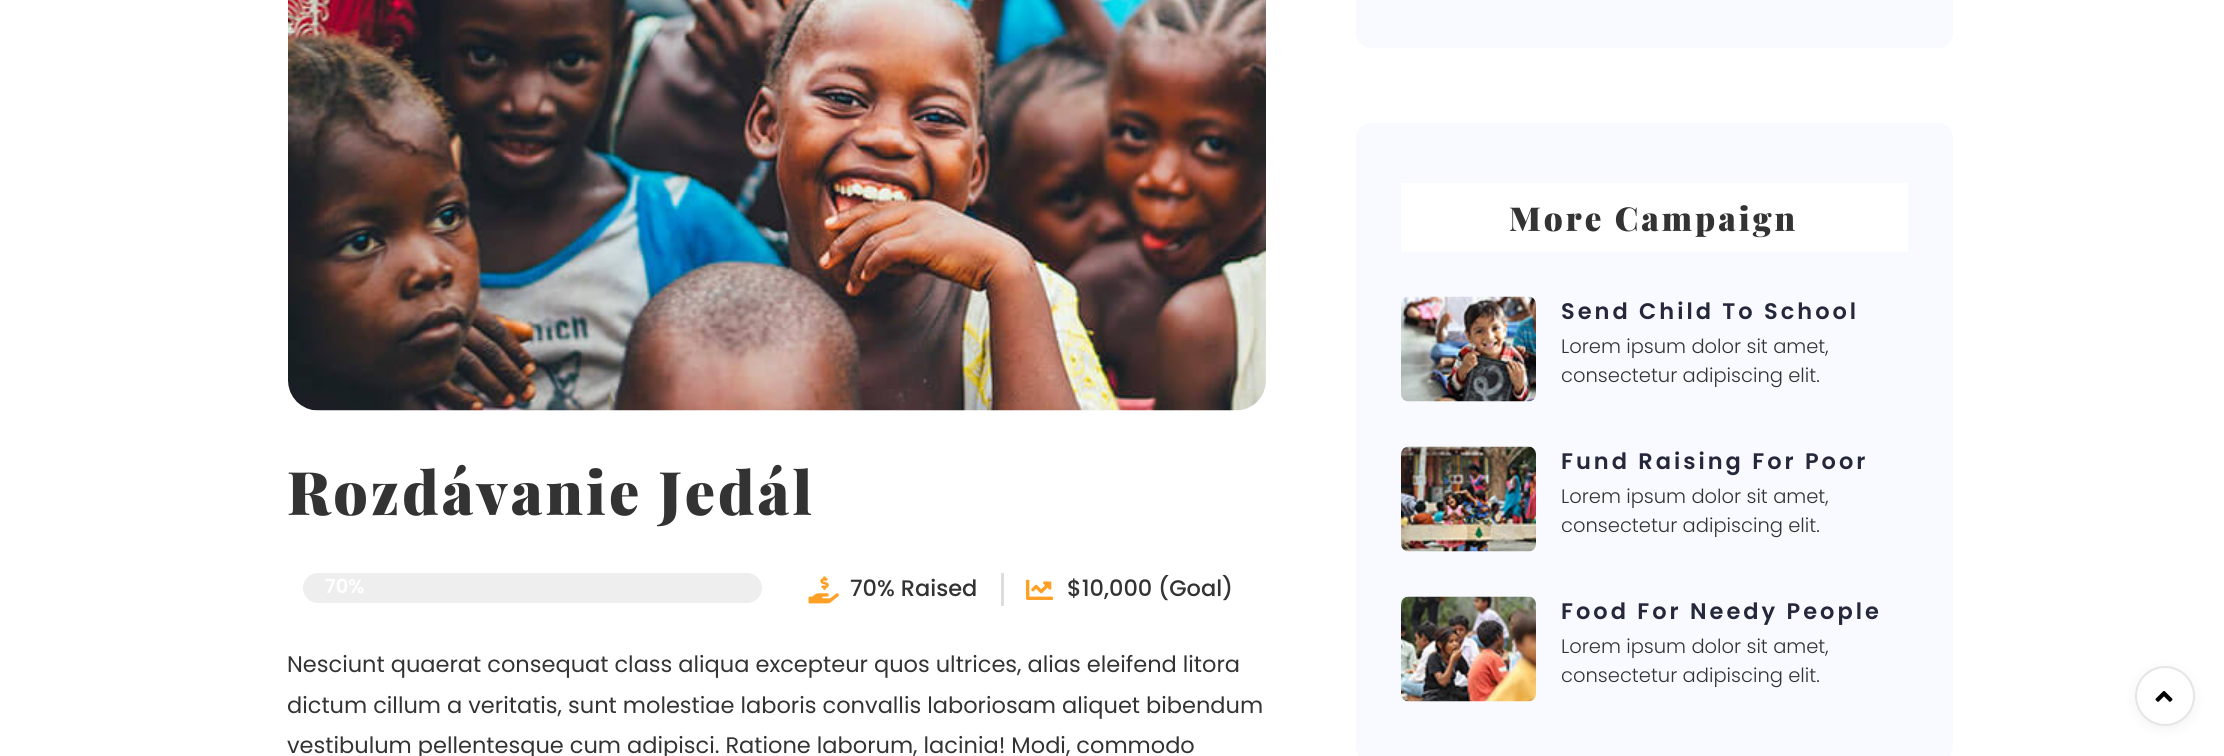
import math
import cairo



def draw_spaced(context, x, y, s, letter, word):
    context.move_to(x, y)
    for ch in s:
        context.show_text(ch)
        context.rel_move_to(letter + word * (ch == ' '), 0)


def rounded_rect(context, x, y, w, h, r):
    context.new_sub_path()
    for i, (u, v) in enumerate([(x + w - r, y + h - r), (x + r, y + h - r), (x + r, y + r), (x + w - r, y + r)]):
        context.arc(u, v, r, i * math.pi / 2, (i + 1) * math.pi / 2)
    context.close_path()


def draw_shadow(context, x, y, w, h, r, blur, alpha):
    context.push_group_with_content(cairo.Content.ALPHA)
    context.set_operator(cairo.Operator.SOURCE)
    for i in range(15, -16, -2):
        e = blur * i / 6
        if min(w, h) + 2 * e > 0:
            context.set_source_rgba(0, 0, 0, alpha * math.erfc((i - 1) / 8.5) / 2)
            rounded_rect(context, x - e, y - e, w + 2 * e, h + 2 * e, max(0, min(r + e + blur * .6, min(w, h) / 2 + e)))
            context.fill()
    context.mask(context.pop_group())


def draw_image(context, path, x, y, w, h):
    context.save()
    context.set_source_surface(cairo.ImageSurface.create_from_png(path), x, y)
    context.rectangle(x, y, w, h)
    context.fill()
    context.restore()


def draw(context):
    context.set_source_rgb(1, 1, 1)
    context.paint()
    draw_image(context, "images/1.png", 288, 0, 978, 411)
    context.set_source_rgb(238 / 255, 238 / 255, 238 / 255)
    rounded_rect(context, 303, 573, 459, 30, 15)
    context.fill()
    draw_image(context, "images/2.png", 808, 576, 31, 28)
    context.set_source_rgb(221 / 255, 221 / 255, 221 / 255)
    context.rectangle(1001, 573, 3, 33)
    context.fill()
    draw_image(context, "images/3.png", 1026, 579, 27, 21)
    context.set_source_rgb(248 / 255, 250 / 255, 1)
    rounded_rect(context, 1356, -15, 597, 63, 15)
    context.fill()
    rounded_rect(context, 1356, 123, 597, 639, 15)
    context.fill()
    context.set_source_rgb(1, 1, 1)
    context.rectangle(1401, 183, 507, 69)
    context.fill()
    draw_image(context, "images/4.png", 1401, 296, 135, 106)
    draw_image(context, "images/5.png", 1401, 446, 135, 106)
    draw_image(context, "images/6.png", 1401, 596, 135, 106)
    context.set_source_rgb(0, 0, 0)
    draw_shadow(context, 2135, 669, 60, 60, 30, 6, 0.05)
    context.set_source_rgb(1, 1, 1)
    context.arc(2165, 696, 29, 0, 2 * math.pi)
    context.fill_preserve()
    context.set_source_rgb(229 / 255, 229 / 255, 229 / 255)
    context.stroke()
    draw_image(context, "images/7.png", 2155, 691, 18, 11)
    context.select_font_face("Playfair Display Black")
    context.set_font_size(60)
    context.set_source_rgb(51 / 255, 51 / 255, 51 / 255)
    draw_spaced(context, 287, 515, "Rozdávanie Jedál", 3, 0)
    context.select_font_face("Poppins SemiBold")
    context.set_font_size(19.5)
    context.set_source_rgb(1, 1, 1)
    context.move_to(325, 593)
    context.show_text("70%")
    context.select_font_face("Poppins Medium")
    context.set_font_size(22.5)
    context.set_source_rgb(51 / 255, 51 / 255, 51 / 255)
    context.move_to(850, 596)
    context.show_text("70% Raised")
    context.move_to(1067, 596)
    context.show_text("$10,000 (Goal)")
    context.select_font_face("Poppins")
    context.move_to(287, 672)
    context.show_text("Nesciunt quaerat consequat class aliqua excepteur quos ultrices, alias eleifend litora")
    context.move_to(287, 713)
    context.show_text("dictum cillum a veritatis, sunt molestiae laboris convallis laboriosam aliquet bibendum")
    context.move_to(287, 753)
    context.show_text("vestibulum pellentesque cum adipisci. Ratione laborum, lacinia! Modi, commodo")
    context.select_font_face("Playfair Display Black")
    context.set_font_size(33)
    draw_spaced(context, 1509, 231, "More Campaign", 3, 0)
    context.select_font_face("Poppins SemiBold")
    context.set_font_size(22.5)
    context.set_source_rgb(37 / 255, 40 / 255, 58 / 255)
    draw_spaced(context, 1561, 319, "Send Child To School", 3, 0)
    context.select_font_face("Poppins Light")
    context.set_font_size(19.5)
    context.set_source_rgb(51 / 255, 51 / 255, 51 / 255)
    context.move_to(1561, 353)
    context.show_text("Lorem ipsum dolor sit amet,")
    context.move_to(1561, 382)
    context.show_text("consectetur adipiscing elit.")
    context.select_font_face("Poppins SemiBold")
    context.set_font_size(22.5)
    context.set_source_rgb(37 / 255, 40 / 255, 58 / 255)
    draw_spaced(context, 1561, 469, "Fund Raising For Poor", 3, 0)
    context.select_font_face("Poppins Light")
    context.set_font_size(19.5)
    context.set_source_rgb(51 / 255, 51 / 255, 51 / 255)
    context.move_to(1561, 503)
    context.show_text("Lorem ipsum dolor sit amet,")
    context.move_to(1561, 532)
    context.show_text("consectetur adipiscing elit.")
    context.select_font_face("Poppins SemiBold")
    context.set_font_size(22.5)
    context.set_source_rgb(37 / 255, 40 / 255, 58 / 255)
    draw_spaced(context, 1561, 619, "Food For Needy People", 3, 0)
    context.select_font_face("Poppins Light")
    context.set_font_size(19.5)
    context.set_source_rgb(51 / 255, 51 / 255, 51 / 255)
    context.move_to(1561, 653)
    context.show_text("Lorem ipsum dolor sit amet,")
    context.move_to(1561, 682)
    context.show_text("consectetur adipiscing elit.")


surface = cairo.ImageSurface(cairo.Format.RGB24, 2224, 756)
context = cairo.Context(surface)
options = cairo.FontOptions()
options.set_hint_metrics(cairo.HintMetrics.OFF)
options.set_hint_style(cairo.HintStyle.NONE)
context.set_font_options(options)
context.set_miter_limit(4)
draw(context)
surface.write_to_png("out.png")
